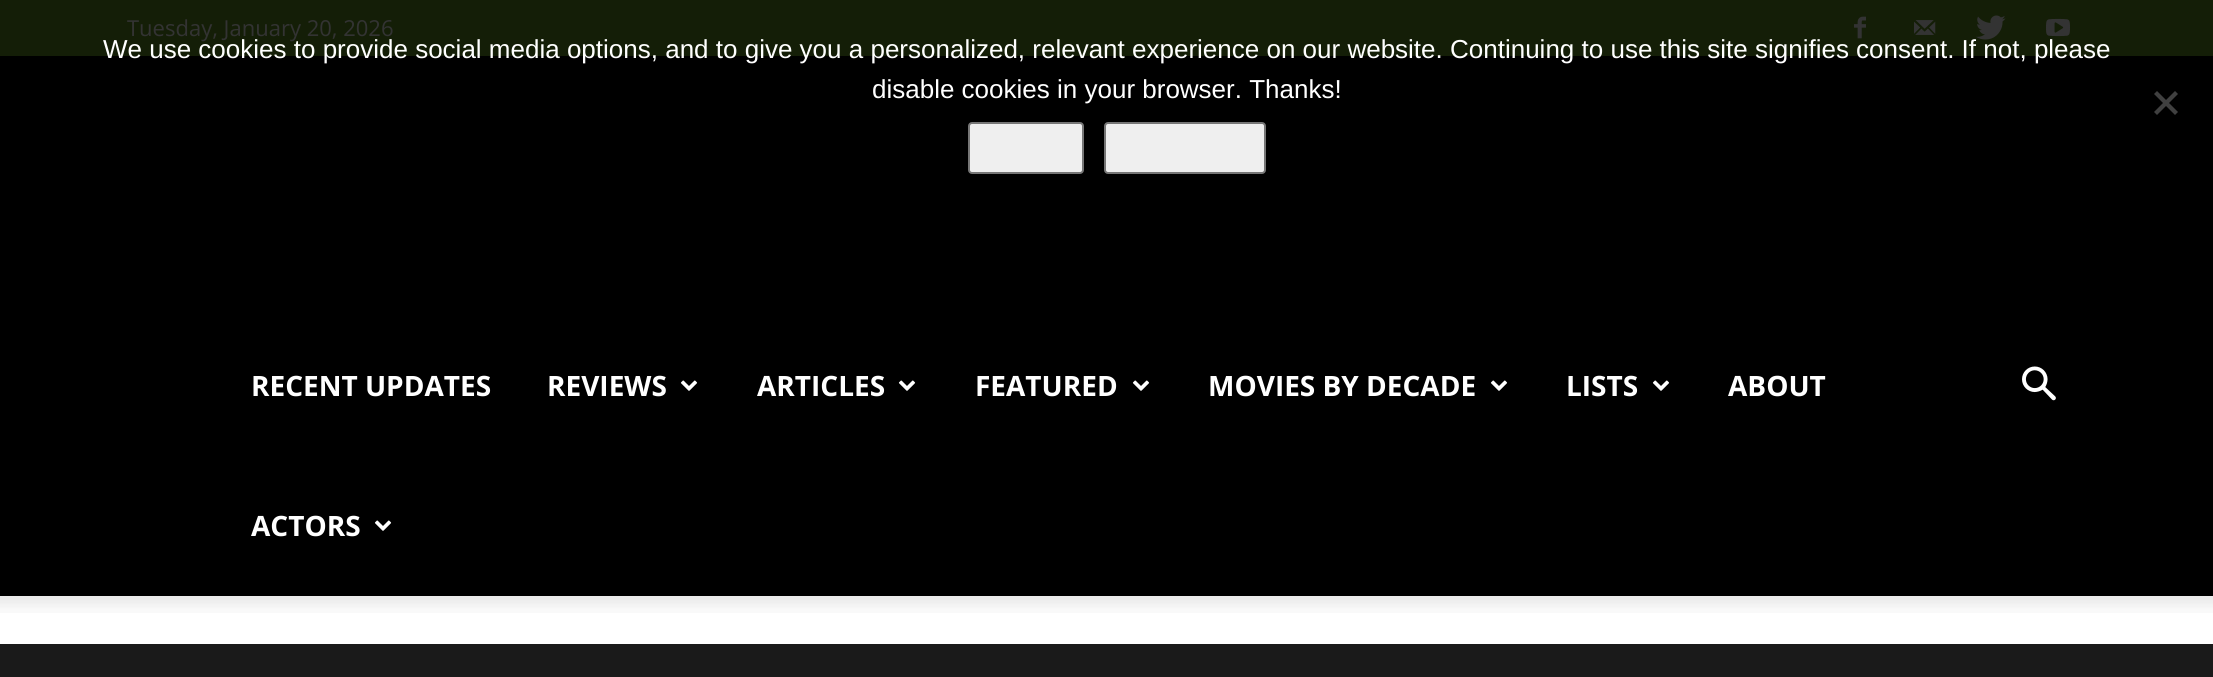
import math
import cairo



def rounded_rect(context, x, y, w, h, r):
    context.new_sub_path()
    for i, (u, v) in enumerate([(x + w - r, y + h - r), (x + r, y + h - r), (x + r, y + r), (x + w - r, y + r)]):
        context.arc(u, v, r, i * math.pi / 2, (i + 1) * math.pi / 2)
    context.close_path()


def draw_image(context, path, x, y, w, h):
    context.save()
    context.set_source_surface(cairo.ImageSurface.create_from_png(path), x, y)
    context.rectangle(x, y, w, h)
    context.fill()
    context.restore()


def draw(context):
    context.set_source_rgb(26 / 255, 26 / 255, 26 / 255)
    context.paint()
    context.set_source_rgb(20 / 255, 30 / 255, 7 / 255)
    context.rectangle(0, 0, 2213, 56)
    context.fill()
    draw_image(context, "images/1.png", 1854, 16, 12, 23)
    draw_image(context, "images/2.png", 1914, 20, 22, 15)
    draw_image(context, "images/3.png", 1976, 15, 30, 25)
    draw_image(context, "images/4.png", 2046, 18, 24, 19)
    context.set_source_rgb(0, 0, 0)
    context.rectangle(0, 56, 2213, 540)
    context.fill()
    draw_image(context, "images/5.png", 680, 380, 18, 11)
    draw_image(context, "images/5.png", 898, 380, 18, 11)
    draw_image(context, "images/5.png", 1132, 380, 18, 11)
    draw_image(context, "images/5.png", 1490, 380, 18, 11)
    draw_image(context, "images/5.png", 1652, 380, 18, 11)
    draw_image(context, "images/5.png", 374, 520, 18, 11)
    draw_image(context, "images/6.png", 2022, 366, 34, 35)
    context.set_source_rgb(1, 1, 1)
    context.rectangle(0, 596, 2213, 48)
    context.fill()
    draw_image(context, "images/7.png", 0, 596, 2213, 17)
    context.set_source_rgb(64 / 255, 64 / 255, 64 / 255)
    context.new_path()
    context.move_to(2175, 91)
    context.line_to(2178, 94)
    context.line_to(2157, 115)
    context.line_to(2154, 112)
    context.close_path()
    context.fill()
    context.new_path()
    context.move_to(2154, 94)
    context.line_to(2157, 91)
    context.line_to(2178, 112)
    context.line_to(2175, 115)
    context.close_path()
    context.fill()
    context.set_source_rgb(239 / 255, 239 / 255, 239 / 255)
    rounded_rect(context, 969, 123, 114, 50, 3)
    context.fill_preserve()
    context.set_source_rgb(118 / 255, 118 / 255, 118 / 255)
    context.stroke()
    context.set_source_rgb(239 / 255, 239 / 255, 239 / 255)
    rounded_rect(context, 1105, 123, 160, 50, 3)
    context.fill_preserve()
    context.set_source_rgb(118 / 255, 118 / 255, 118 / 255)
    context.stroke()
    context.select_font_face("Open Sans")
    context.set_font_size(22)
    context.set_source_rgb(51 / 255, 51 / 255, 51 / 255)
    context.move_to(127, 36)
    context.show_text("Tuesday, January 20, 2026")
    context.select_font_face("Open Sans", cairo.FontSlant.NORMAL, cairo.FontWeight.BOLD)
    context.set_font_size(28)
    context.set_source_rgb(1, 1, 1)
    context.move_to(251, 396)
    context.show_text("RECENT UPDATES")
    context.move_to(547, 396)
    context.show_text("REVIEWS")
    context.move_to(757, 396)
    context.show_text("ARTICLES")
    context.move_to(975, 396)
    context.show_text("FEATURED")
    context.move_to(1208, 396)
    context.show_text("MOVIES BY DECADE")
    context.move_to(1566, 396)
    context.show_text("LISTS")
    context.move_to(1728, 396)
    context.show_text("ABOUT")
    context.move_to(251, 536)
    context.show_text("ACTORS")
    context.select_font_face("Liberation Sans")
    context.set_font_size(26)
    context.move_to(103, 58)
    context.show_text("We use cookies to provide social media options, and to give you a personalized, relevant experience on our website. Continuing to use this site signifies consent. If not, please")
    context.move_to(872, 98)
    context.show_text("disable cookies in your browser. Thanks!")


surface = cairo.ImageSurface(cairo.Format.RGB24, 2213, 677)
context = cairo.Context(surface)
options = cairo.FontOptions()
options.set_hint_metrics(cairo.HintMetrics.OFF)
options.set_hint_style(cairo.HintStyle.NONE)
context.set_font_options(options)
context.set_miter_limit(4)
draw(context)
surface.write_to_png("out.png")
